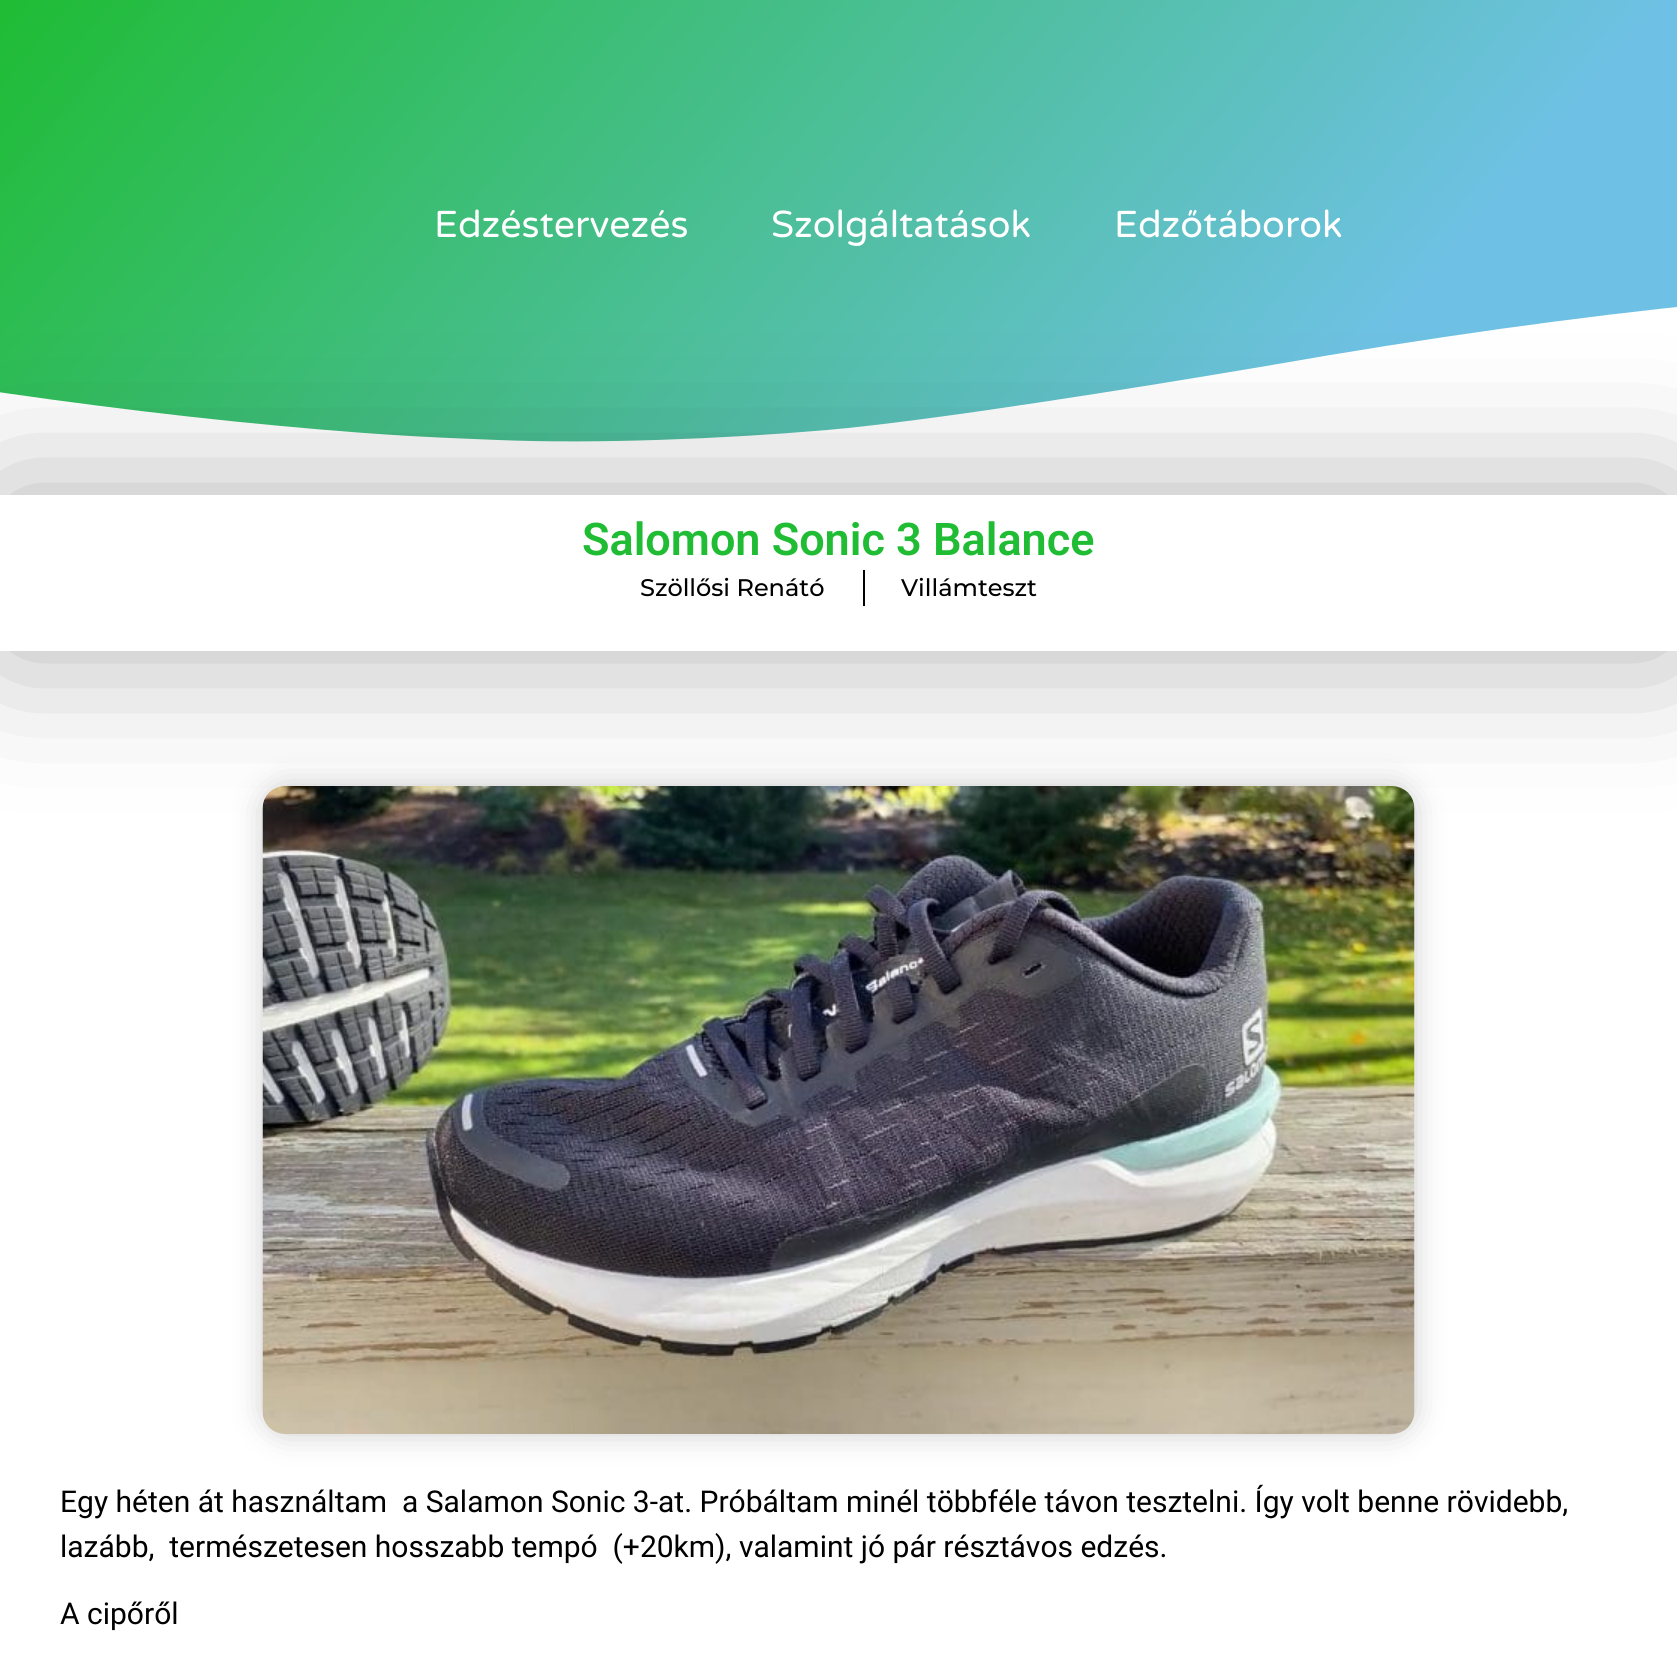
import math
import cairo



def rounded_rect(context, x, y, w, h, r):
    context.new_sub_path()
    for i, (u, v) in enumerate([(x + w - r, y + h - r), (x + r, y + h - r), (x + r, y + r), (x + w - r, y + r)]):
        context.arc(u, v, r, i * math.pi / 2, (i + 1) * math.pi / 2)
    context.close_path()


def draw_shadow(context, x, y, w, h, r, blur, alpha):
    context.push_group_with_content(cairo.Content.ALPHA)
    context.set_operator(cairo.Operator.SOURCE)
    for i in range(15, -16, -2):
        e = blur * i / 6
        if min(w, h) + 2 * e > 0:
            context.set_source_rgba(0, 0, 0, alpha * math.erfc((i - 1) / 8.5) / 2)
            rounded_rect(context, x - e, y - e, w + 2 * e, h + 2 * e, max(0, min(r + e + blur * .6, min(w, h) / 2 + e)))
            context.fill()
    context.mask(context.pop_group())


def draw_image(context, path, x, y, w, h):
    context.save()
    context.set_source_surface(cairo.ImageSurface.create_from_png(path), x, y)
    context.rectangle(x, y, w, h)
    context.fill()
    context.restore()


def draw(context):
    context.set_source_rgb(1, 1, 1)
    context.paint()
    gradient = cairo.LinearGradient(236, -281, 1441, 731)
    gradient.add_color_stop_rgba(0, 31 / 255, 188 / 255, 52 / 255, 1)
    gradient.add_color_stop_rgba(0.81, 110 / 255, 193 / 255, 228 / 255, 1)
    context.set_source(gradient)
    context.rectangle(0, 0, 1677, 442)
    context.fill()
    context.set_source_rgb(1, 1, 1)
    context.new_path()
    context.move_to(498, 440)
    context.curve_to(596, 444, 722, 439, 827, 430)
    context.curve_to(930, 421, 1136, 388, 1266, 366)
    context.curve_to(1596, 308, 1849, 286, 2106, 277)
    context.curve_to(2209, 273, 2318, 270, 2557, 281)
    context.curve_to(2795, 292, 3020, 327, 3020, 327)
    context.line_to(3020, 452)
    context.line_to(-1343, 452)
    context.line_to(-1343, 397)
    context.curve_to(-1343, 397, -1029, 338, -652, 342)
    context.curve_to(-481, 343, -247, 354, -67, 382)
    context.curve_to(25, 397, 161, 415, 281, 426)
    context.curve_to(399, 437, 453, 438, 498, 440)
    context.close_path()
    context.fill()
    context.save()
    context.set_fill_rule(cairo.FillRule.EVEN_ODD)
    context.new_path()
    context.move_to(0, 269)
    context.line_to(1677, 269)
    context.line_to(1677, 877)
    context.line_to(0, 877)
    context.close_path()
    context.move_to(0, 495)
    context.line_to(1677, 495)
    context.line_to(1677, 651)
    context.line_to(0, 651)
    context.close_path()
    context.clip()
    context.set_source_rgb(0, 0, 0)
    draw_shadow(context, 0, 495, 1677, 156, 0, 75, 0.31)
    context.restore()
    context.set_source_rgb(0, 0, 0)
    context.rectangle(863, 570, 2, 36)
    context.fill()
    context.set_source_rgb(0, 0, 0)
    draw_shadow(context, 263, 786, 1152, 648, 23, 15, 0.2)
    draw_image(context, "images/1.png", 262, 786, 1153, 648)
    context.select_font_face("Varela Round")
    context.set_font_size(37.5)
    context.set_source_rgb(1, 1, 1)
    context.move_to(434, 237)
    context.show_text("Edzéstervezés")
    context.move_to(771, 237)
    context.show_text("Szolgáltatások")
    context.move_to(1114, 237)
    context.show_text("Edzőtáborok")
    context.select_font_face("Roboto SemiBold")
    context.set_font_size(45)
    context.set_source_rgb(31 / 255, 188 / 255, 52 / 255)
    context.move_to(582, 555)
    context.show_text("Salomon Sonic 3 Balance")
    context.select_font_face("Montserrat Medium")
    context.set_font_size(24)
    context.set_source_rgb(0, 0, 0)
    context.move_to(640, 596)
    context.show_text("Szöllősi Renátó")
    context.move_to(901, 596)
    context.show_text("Villámteszt")
    context.select_font_face("Roboto")
    context.set_font_size(30)
    context.move_to(60, 1512)
    context.show_text("Egy héten át használtam  a Salamon Sonic 3-at. Próbáltam minél többféle távon tesztelni. Így volt benne rövidebb,")
    context.move_to(60, 1557)
    context.show_text("lazább,  természetesen hosszabb tempó  (+20km), valamint jó pár résztávos edzés.")
    context.move_to(60, 1624)
    context.show_text("A cipőről")


surface = cairo.ImageSurface(cairo.Format.RGB24, 1677, 1658)
context = cairo.Context(surface)
options = cairo.FontOptions()
options.set_hint_metrics(cairo.HintMetrics.OFF)
options.set_hint_style(cairo.HintStyle.NONE)
context.set_font_options(options)
context.set_miter_limit(4)
draw(context)
surface.write_to_png("out.png")
